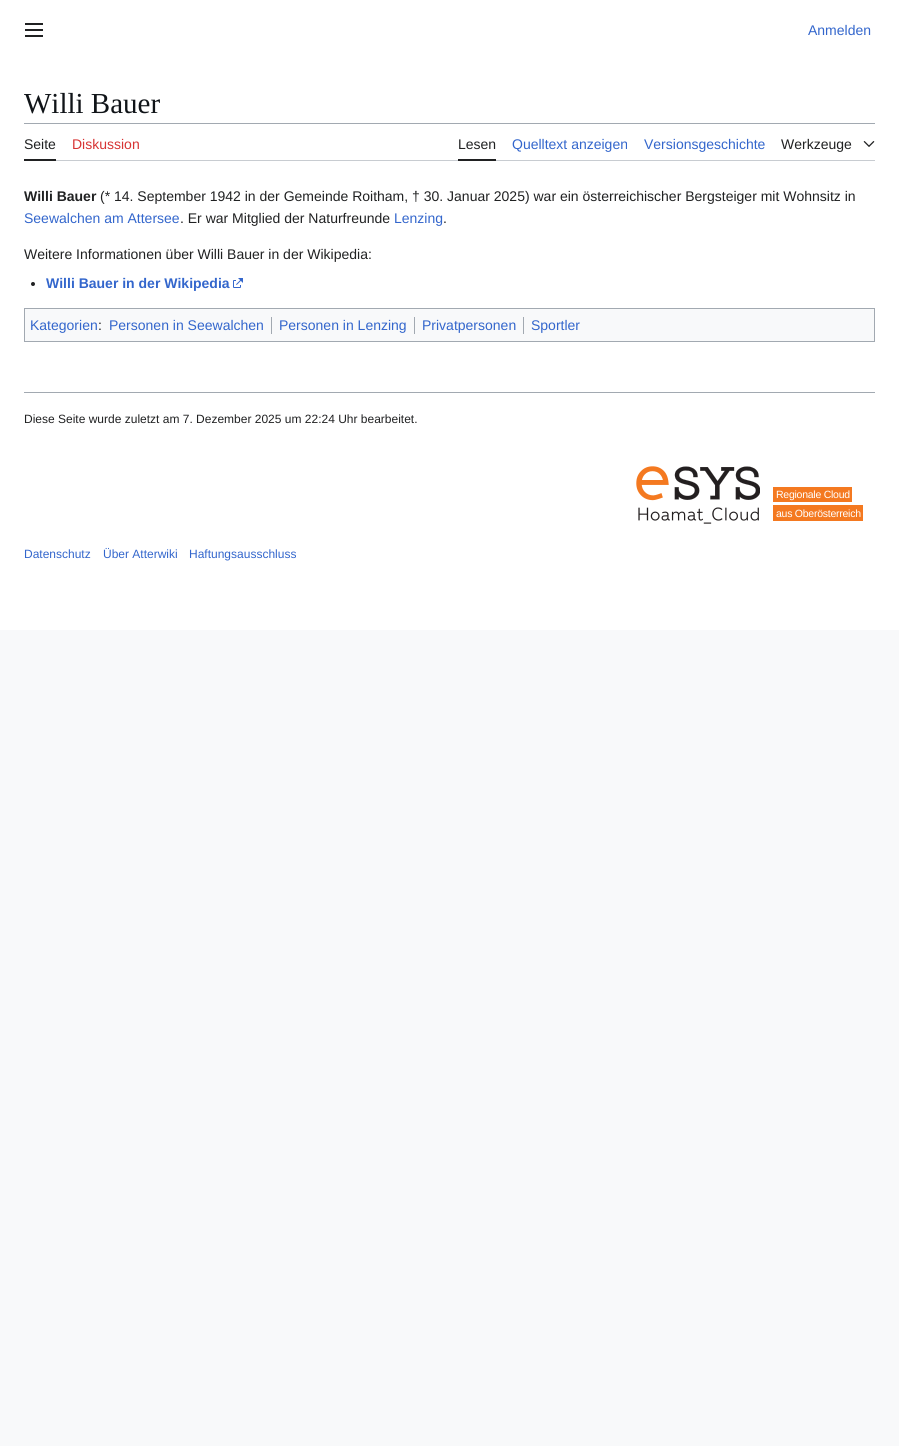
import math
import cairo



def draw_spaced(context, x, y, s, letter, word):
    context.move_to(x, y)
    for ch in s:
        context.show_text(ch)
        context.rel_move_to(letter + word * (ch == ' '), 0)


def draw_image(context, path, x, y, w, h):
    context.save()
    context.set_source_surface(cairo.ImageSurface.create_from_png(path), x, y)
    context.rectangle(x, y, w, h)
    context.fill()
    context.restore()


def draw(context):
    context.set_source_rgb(248 / 255, 249 / 255, 250 / 255)
    context.paint()
    context.set_source_rgb(1, 1, 1)
    context.rectangle(0, 0, 899, 630)
    context.fill()
    draw_image(context, "images/1.png", 25, 23, 18, 14)
    context.set_source_rgb(162 / 255, 169 / 255, 177 / 255)
    context.rectangle(24, 123, 851, 1)
    context.fill()
    context.set_source_rgb(200 / 255, 204 / 255, 209 / 255)
    context.rectangle(56, 160, 819, 1)
    context.fill()
    context.set_source_rgb(32 / 255, 33 / 255, 34 / 255)
    context.rectangle(24, 159, 32, 2)
    context.fill()
    context.rectangle(458, 159, 38, 2)
    context.fill()
    draw_image(context, "images/2.png", 863, 141, 12, 6)
    context.arc(33, 284, 2, 0, 2 * math.pi)
    context.fill()
    draw_image(context, "images/3.png", 233, 278, 10, 10)
    context.set_source_rgb(248 / 255, 249 / 255, 250 / 255)
    context.rectangle(24.5, 308.5, 850, 33)
    context.fill_preserve()
    context.set_source_rgb(162 / 255, 169 / 255, 177 / 255)
    context.set_line_width(1)
    context.stroke()
    context.rectangle(271, 317, 1, 17)
    context.fill()
    context.rectangle(414, 317, 1, 17)
    context.fill()
    context.rectangle(523, 317, 1, 17)
    context.fill()
    context.rectangle(24, 392, 851, 1)
    context.fill()
    draw_image(context, "images/4.png", 636, 466, 124, 58)
    context.set_source_rgb(244 / 255, 121 / 255, 32 / 255)
    context.rectangle(773, 487, 79, 15)
    context.fill()
    context.rectangle(773, 505, 90, 16)
    context.fill()
    context.select_font_face("Liberation Sans")
    context.set_font_size(14)
    context.set_source_rgb(51 / 255, 102 / 255, 204 / 255)
    context.move_to(808, 35)
    context.show_text("Anmelden")
    context.select_font_face("Liberation Serif")
    context.set_font_size(29)
    context.set_source_rgb(16 / 255, 20 / 255, 24 / 255)
    context.move_to(24, 113)
    context.show_text("Willi Bauer")
    context.select_font_face("Liberation Sans")
    context.set_font_size(14)
    context.set_source_rgb(32 / 255, 33 / 255, 34 / 255)
    context.move_to(24, 149)
    context.show_text("Seite")
    context.set_source_rgb(215 / 255, 51 / 255, 51 / 255)
    context.move_to(72, 149)
    context.show_text("Diskussion")
    context.set_source_rgb(32 / 255, 33 / 255, 34 / 255)
    context.move_to(458, 149)
    context.show_text("Lesen")
    context.set_source_rgb(51 / 255, 102 / 255, 204 / 255)
    context.move_to(512, 149)
    context.show_text("Quelltext anzeigen")
    context.move_to(644, 149)
    context.show_text("Versionsgeschichte")
    context.set_source_rgb(32 / 255, 33 / 255, 34 / 255)
    context.move_to(781, 149)
    context.show_text("Werkzeuge")
    context.select_font_face("Liberation Sans", cairo.FontSlant.NORMAL, cairo.FontWeight.BOLD)
    context.move_to(24, 201)
    context.show_text("Willi Bauer")
    context.select_font_face("Liberation Sans")
    context.move_to(100, 201)
    context.show_text("(* 14. September 1942 in der Gemeinde Roitham, † 30. Januar 2025) war ein österreichischer Bergsteiger mit Wohnsitz in")
    context.set_source_rgb(51 / 255, 102 / 255, 204 / 255)
    context.move_to(24, 223)
    context.show_text("Seewalchen am Attersee")
    context.set_source_rgb(32 / 255, 33 / 255, 34 / 255)
    context.move_to(180, 223)
    context.show_text(". Er war Mitglied der Naturfreunde")
    context.set_source_rgb(51 / 255, 102 / 255, 204 / 255)
    context.move_to(394, 223)
    context.show_text("Lenzing")
    context.set_source_rgb(32 / 255, 33 / 255, 34 / 255)
    context.move_to(443, 223)
    context.show_text(".")
    context.move_to(24, 259)
    context.show_text("Weitere Informationen über Willi Bauer in der Wikipedia:")
    context.select_font_face("Liberation Sans", cairo.FontSlant.NORMAL, cairo.FontWeight.BOLD)
    context.set_source_rgb(51 / 255, 102 / 255, 204 / 255)
    context.move_to(46, 288)
    context.show_text("Willi Bauer in der Wikipedia")
    context.select_font_face("Liberation Sans")
    context.move_to(30, 330)
    context.show_text("Kategorien")
    context.set_source_rgb(32 / 255, 33 / 255, 34 / 255)
    context.move_to(98, 330)
    context.show_text(":")
    context.set_source_rgb(51 / 255, 102 / 255, 204 / 255)
    context.move_to(109, 330)
    context.show_text("Personen in Seewalchen")
    context.move_to(279, 330)
    context.show_text("Personen in Lenzing")
    context.move_to(422, 330)
    context.show_text("Privatpersonen")
    context.move_to(531, 330)
    context.show_text("Sportler")
    context.set_font_size(12)
    context.set_source_rgb(32 / 255, 33 / 255, 34 / 255)
    context.move_to(24, 423)
    context.show_text("Diese Seite wurde zuletzt am 7. Dezember 2025 um 22:24 Uhr bearbeitet.")
    context.set_font_size(10.5)
    context.set_source_rgb(1, 1, 1)
    draw_spaced(context, 776, 498, "Regionale Cloud", -0.25, 0)
    draw_spaced(context, 776, 517, "aus Oberösterreich", -0.25, 0)
    context.set_font_size(12)
    context.set_source_rgb(51 / 255, 102 / 255, 204 / 255)
    context.move_to(24, 558)
    context.show_text("Datenschutz")
    context.move_to(103, 558)
    context.show_text("Über Atterwiki")
    context.move_to(189, 558)
    context.show_text("Haftungsausschluss")


surface = cairo.ImageSurface(cairo.Format.RGB24, 899, 1446)
context = cairo.Context(surface)
options = cairo.FontOptions()
options.set_hint_metrics(cairo.HintMetrics.OFF)
options.set_hint_style(cairo.HintStyle.NONE)
context.set_font_options(options)
context.set_miter_limit(4)
draw(context)
surface.write_to_png("out.png")
